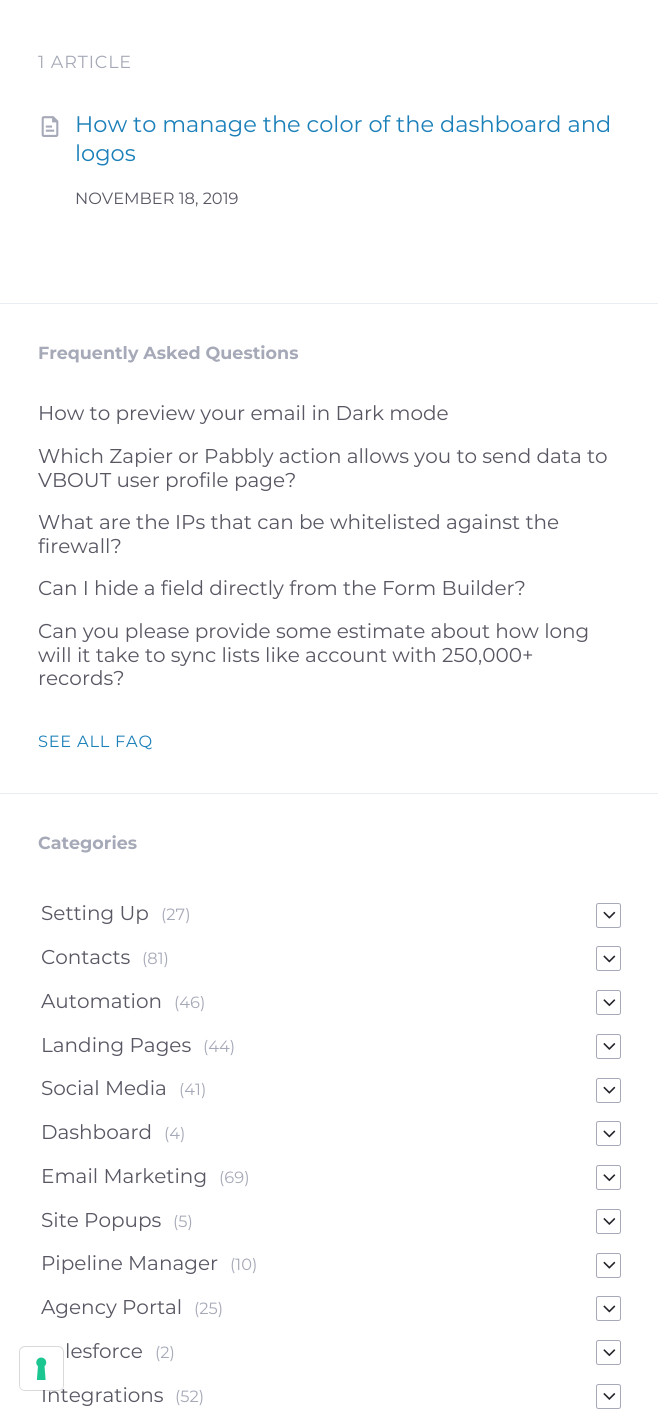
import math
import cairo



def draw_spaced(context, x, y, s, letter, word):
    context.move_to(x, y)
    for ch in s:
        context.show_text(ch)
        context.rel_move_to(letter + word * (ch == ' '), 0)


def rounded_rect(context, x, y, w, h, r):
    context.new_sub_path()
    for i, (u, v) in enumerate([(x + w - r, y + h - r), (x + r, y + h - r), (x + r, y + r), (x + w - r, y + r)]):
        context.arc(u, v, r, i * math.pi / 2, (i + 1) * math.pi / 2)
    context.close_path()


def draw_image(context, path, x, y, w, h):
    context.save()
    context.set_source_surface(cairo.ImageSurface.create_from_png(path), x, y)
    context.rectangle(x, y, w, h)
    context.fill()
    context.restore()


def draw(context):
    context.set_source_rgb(1, 1, 1)
    context.paint()
    draw_image(context, "images/1.png", 41, 116, 18, 21)
    context.set_source_rgb(234 / 255, 237 / 255, 243 / 255)
    context.rectangle(0, 303, 658, 1)
    context.fill()
    context.rectangle(0, 793, 658, 1)
    context.fill()
    rounded_rect(context, 596.5, 903.5, 24, 24, 2)
    context.set_source_rgb(166 / 255, 169 / 255, 183 / 255)
    context.set_line_width(1)
    context.stroke()
    draw_image(context, "images/2.png", 603, 911, 13, 8)
    rounded_rect(context, 596.5, 946.5, 24, 24, 2)
    context.stroke()
    draw_image(context, "images/3.png", 603, 955, 13, 8)
    rounded_rect(context, 596.5, 990.5, 24, 24, 2)
    context.stroke()
    draw_image(context, "images/4.png", 603, 999, 13, 8)
    rounded_rect(context, 596.5, 1034.5, 24, 24, 2)
    context.stroke()
    draw_image(context, "images/5.png", 603, 1043, 13, 7)
    rounded_rect(context, 596.5, 1078.5, 24, 24, 2)
    context.stroke()
    draw_image(context, "images/2.png", 603, 1086, 13, 8)
    rounded_rect(context, 596.5, 1121.5, 24, 24, 2)
    context.stroke()
    draw_image(context, "images/3.png", 603, 1130, 13, 8)
    rounded_rect(context, 596.5, 1165.5, 24, 24, 2)
    context.stroke()
    draw_image(context, "images/4.png", 603, 1174, 13, 8)
    rounded_rect(context, 596.5, 1209.5, 24, 24, 2)
    context.stroke()
    draw_image(context, "images/5.png", 603, 1218, 13, 7)
    rounded_rect(context, 596.5, 1253.5, 24, 24, 2)
    context.stroke()
    draw_image(context, "images/2.png", 603, 1261, 13, 8)
    rounded_rect(context, 596.5, 1296.5, 24, 24, 2)
    context.stroke()
    draw_image(context, "images/3.png", 603, 1305, 13, 8)
    rounded_rect(context, 596.5, 1340.5, 24, 24, 2)
    context.stroke()
    draw_image(context, "images/4.png", 603, 1349, 13, 8)
    rounded_rect(context, 596.5, 1384.5, 24, 24, 2)
    context.stroke()
    draw_image(context, "images/5.png", 603, 1393, 13, 7)
    context.select_font_face("Montserrat Thin")
    context.set_font_size(17.5)
    draw_spaced(context, 38, 68, "1 ARTICLE", 0.9, 0)
    context.set_font_size(22.5)
    context.set_source_rgb(27 / 255, 128 / 255, 185 / 255)
    context.move_to(75, 132)
    context.show_text("How to manage the color of the dashboard and")
    context.move_to(75, 161)
    context.show_text("logos")
    context.set_font_size(16.25)
    context.set_source_rgb(87 / 255, 88 / 255, 99 / 255)
    context.move_to(75, 204)
    context.show_text("NOVEMBER 18, 2019")
    context.select_font_face("Montserrat", cairo.FontSlant.NORMAL, cairo.FontWeight.BOLD)
    context.set_font_size(17.5)
    context.set_source_rgb(166 / 255, 169 / 255, 183 / 255)
    context.move_to(38, 359)
    context.show_text("Frequently Asked Questions")
    context.select_font_face("Montserrat Thin")
    context.set_font_size(20)
    context.set_source_rgb(87 / 255, 88 / 255, 99 / 255)
    context.move_to(38, 420)
    context.show_text("How to preview your email in Dark mode")
    context.move_to(38, 463)
    context.show_text("Which Zapier or Pabbly action allows you to send data to")
    context.move_to(38, 487)
    context.show_text("VBOUT user profile page?")
    context.move_to(38, 529)
    context.show_text("What are the IPs that can be whitelisted against the")
    context.move_to(38, 553)
    context.show_text("firewall?")
    context.move_to(38, 595)
    context.show_text("Can I hide a field directly from the Form Builder?")
    context.move_to(38, 638)
    context.show_text("Can you please provide some estimate about how long")
    context.move_to(38, 662)
    context.show_text("will it take to sync lists like account with 250,000+")
    context.move_to(38, 685)
    context.show_text("records?")
    context.set_font_size(16.25)
    context.set_source_rgb(27 / 255, 128 / 255, 185 / 255)
    draw_spaced(context, 38, 747, "SEE ALL FAQ", 0.75, 0)
    context.select_font_face("Montserrat", cairo.FontSlant.NORMAL, cairo.FontWeight.BOLD)
    context.set_font_size(17.5)
    context.set_source_rgb(166 / 255, 169 / 255, 183 / 255)
    context.move_to(38, 849)
    context.show_text("Categories")
    context.select_font_face("Montserrat Thin")
    context.set_font_size(20)
    context.set_source_rgb(87 / 255, 88 / 255, 99 / 255)
    context.move_to(41, 920)
    context.show_text("Setting Up")
    context.set_font_size(16.25)
    context.set_source_rgb(166 / 255, 169 / 255, 183 / 255)
    context.move_to(161, 920)
    context.show_text("(27)")
    context.set_font_size(20)
    context.set_source_rgb(87 / 255, 88 / 255, 99 / 255)
    context.move_to(41, 964)
    context.show_text("Contacts")
    context.set_font_size(16.25)
    context.set_source_rgb(166 / 255, 169 / 255, 183 / 255)
    context.move_to(142, 964)
    context.show_text("(81)")
    context.set_font_size(20)
    context.set_source_rgb(87 / 255, 88 / 255, 99 / 255)
    context.move_to(41, 1008)
    context.show_text("Automation")
    context.set_font_size(16.25)
    context.set_source_rgb(166 / 255, 169 / 255, 183 / 255)
    context.move_to(174, 1008)
    context.show_text("(46)")
    context.set_font_size(20)
    context.set_source_rgb(87 / 255, 88 / 255, 99 / 255)
    context.move_to(41, 1052)
    context.show_text("Landing Pages")
    context.set_font_size(16.25)
    context.set_source_rgb(166 / 255, 169 / 255, 183 / 255)
    context.move_to(203, 1052)
    context.show_text("(44)")
    context.set_font_size(20)
    context.set_source_rgb(87 / 255, 88 / 255, 99 / 255)
    context.move_to(41, 1095)
    context.show_text("Social Media")
    context.set_font_size(16.25)
    context.set_source_rgb(166 / 255, 169 / 255, 183 / 255)
    context.move_to(179, 1095)
    context.show_text("(41)")
    context.set_font_size(20)
    context.set_source_rgb(87 / 255, 88 / 255, 99 / 255)
    context.move_to(41, 1139)
    context.show_text("Dashboard")
    context.set_font_size(16.25)
    context.set_source_rgb(166 / 255, 169 / 255, 183 / 255)
    context.move_to(164, 1139)
    context.show_text("(4)")
    context.set_font_size(20)
    context.set_source_rgb(87 / 255, 88 / 255, 99 / 255)
    context.move_to(41, 1183)
    context.show_text("Email Marketing")
    context.set_font_size(16.25)
    context.set_source_rgb(166 / 255, 169 / 255, 183 / 255)
    context.move_to(219, 1183)
    context.show_text("(69)")
    context.set_font_size(20)
    context.set_source_rgb(87 / 255, 88 / 255, 99 / 255)
    context.move_to(41, 1227)
    context.show_text("Site Popups")
    context.set_font_size(16.25)
    context.set_source_rgb(166 / 255, 169 / 255, 183 / 255)
    context.move_to(173, 1227)
    context.show_text("(5)")
    context.set_font_size(20)
    context.set_source_rgb(87 / 255, 88 / 255, 99 / 255)
    context.move_to(41, 1270)
    context.show_text("Pipeline Manager")
    context.set_font_size(16.25)
    context.set_source_rgb(166 / 255, 169 / 255, 183 / 255)
    context.move_to(230, 1270)
    context.show_text("(10)")
    context.set_font_size(20)
    context.set_source_rgb(87 / 255, 88 / 255, 99 / 255)
    context.move_to(41, 1314)
    context.show_text("Agency Portal")
    context.set_font_size(16.25)
    context.set_source_rgb(166 / 255, 169 / 255, 183 / 255)
    context.move_to(194, 1314)
    context.show_text("(25)")
    context.set_font_size(20)
    context.set_source_rgb(87 / 255, 88 / 255, 99 / 255)
    context.move_to(65, 1358)
    context.show_text("lesforce")
    context.set_font_size(16.25)
    context.set_source_rgb(166 / 255, 169 / 255, 183 / 255)
    context.move_to(155, 1358)
    context.show_text("(2)")
    context.set_font_size(20)
    context.set_source_rgb(87 / 255, 88 / 255, 99 / 255)
    context.move_to(41, 1402)
    context.show_text("Integrations")
    context.set_font_size(16.25)
    context.set_source_rgb(166 / 255, 169 / 255, 183 / 255)
    context.move_to(175, 1402)
    context.show_text("(52)")
    rounded_rect(context, 19.5, 1346.5, 44, 44, 5.5)
    context.set_source_rgba(0, 0, 0, 0.15)
    context.stroke()
    context.set_source_rgb(1, 1, 1)
    rounded_rect(context, 20, 1348, 43, 42, 5)
    context.fill()
    draw_image(context, "images/6.png", 36, 1357, 11, 23)


surface = cairo.ImageSurface(cairo.Format.RGB24, 658, 1409)
context = cairo.Context(surface)
options = cairo.FontOptions()
options.set_hint_metrics(cairo.HintMetrics.OFF)
options.set_hint_style(cairo.HintStyle.NONE)
context.set_font_options(options)
context.set_miter_limit(4)
draw(context)
surface.write_to_png("out.png")
